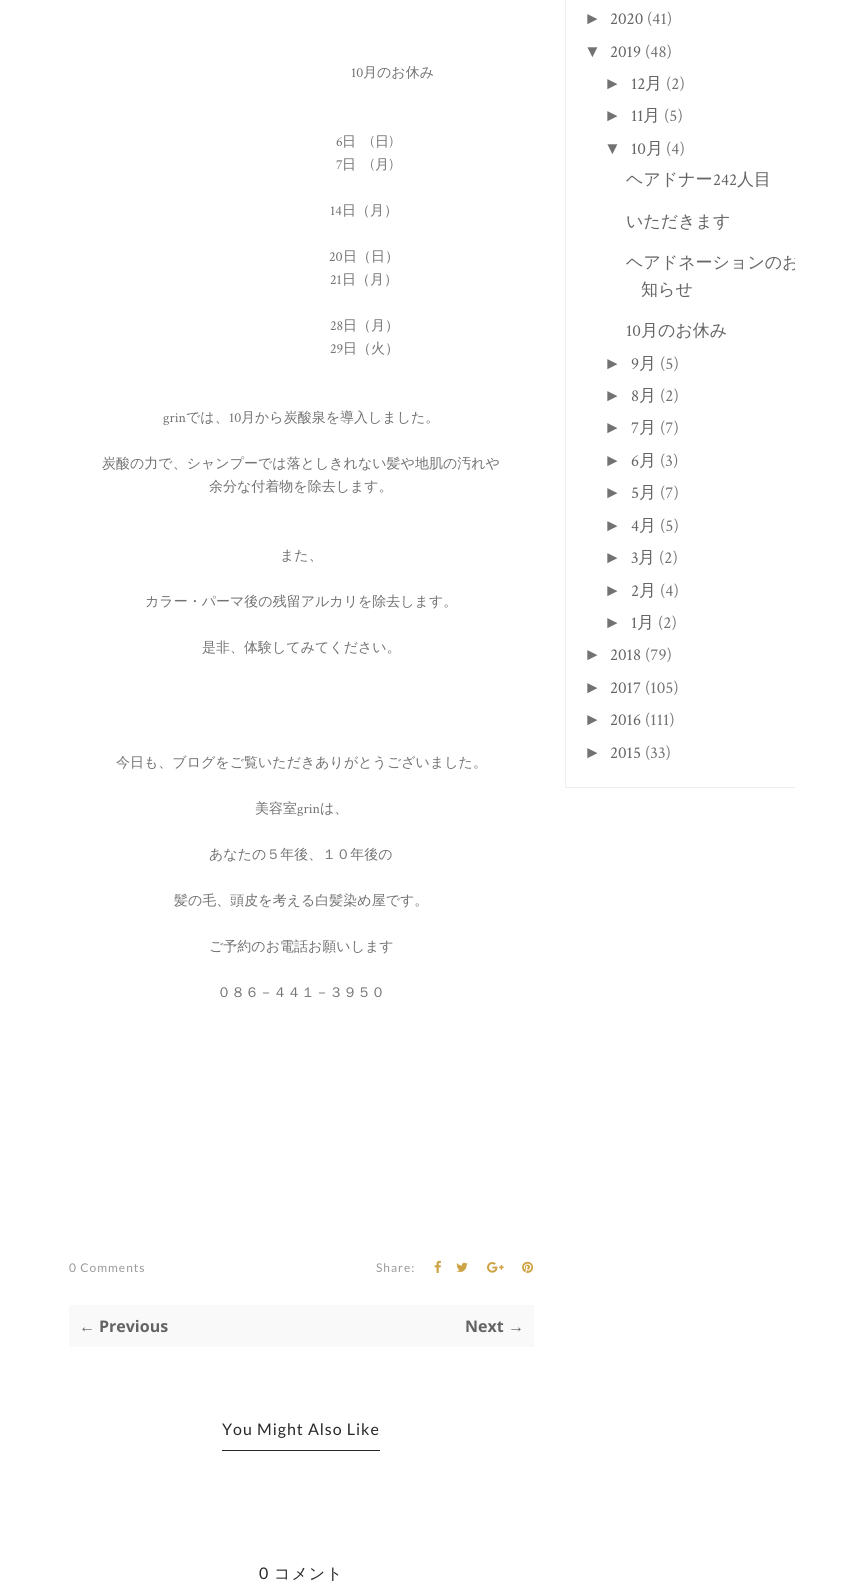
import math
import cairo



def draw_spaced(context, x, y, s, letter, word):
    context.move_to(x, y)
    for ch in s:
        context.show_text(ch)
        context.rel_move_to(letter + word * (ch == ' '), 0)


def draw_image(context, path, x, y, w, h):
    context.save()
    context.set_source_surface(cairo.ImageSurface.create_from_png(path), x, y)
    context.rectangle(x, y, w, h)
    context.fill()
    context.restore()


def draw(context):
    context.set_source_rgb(1, 1, 1)
    context.paint()
    draw_image(context, "images/1.png", 434, 1260, 7, 13)
    draw_image(context, "images/2.png", 456, 1262, 12, 10)
    draw_image(context, "images/3.png", 487, 1262, 17, 11)
    draw_image(context, "images/4.png", 522, 1261, 12, 12)
    context.set_source_rgb(249 / 255, 249 / 255, 249 / 255)
    context.rectangle(69, 1305, 465, 42)
    context.fill()
    context.set_source_rgb(40 / 255, 40 / 255, 40 / 255)
    context.rectangle(222, 1450, 158, 1)
    context.fill()
    context.save()
    context.rectangle(69, 0, 726, 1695)
    context.clip()
    context.rectangle(565.5, -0.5, 267, 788)
    context.set_source_rgb(238 / 255, 238 / 255, 238 / 255)
    context.set_line_width(1)
    context.stroke()
    context.restore()
    context.select_font_face("Crimson Text")
    context.set_font_size(14)
    context.set_source_rgb(114 / 255, 114 / 255, 114 / 255)
    context.move_to(351, 77)
    context.show_text("10")
    context.select_font_face("WenQuanYi Zen Hei Medium")
    context.move_to(363, 77)
    context.show_text("月のお休み")
    context.select_font_face("Crimson Text")
    context.move_to(336, 146)
    context.show_text("6")
    context.select_font_face("WenQuanYi Zen Hei Medium")
    context.move_to(342, 146)
    context.show_text("日")
    context.select_font_face("Crimson Text")
    context.move_to(370, 146)
    context.show_text("(")
    context.select_font_face("WenQuanYi Zen Hei Medium")
    context.move_to(375, 146)
    context.show_text("日")
    context.select_font_face("Crimson Text")
    context.move_to(389, 146)
    context.show_text(")")
    context.move_to(336, 169)
    context.show_text("7")
    context.select_font_face("WenQuanYi Zen Hei Medium")
    context.move_to(342, 169)
    context.show_text("日")
    context.select_font_face("Crimson Text")
    context.move_to(370, 169)
    context.show_text("(")
    context.select_font_face("WenQuanYi Zen Hei Medium")
    context.move_to(375, 169)
    context.show_text("月")
    context.select_font_face("Crimson Text")
    context.move_to(389, 169)
    context.show_text(")")
    context.move_to(330, 215)
    context.show_text("14")
    context.select_font_face("WenQuanYi Zen Hei Medium")
    context.move_to(342, 215)
    context.show_text("日（月）")
    context.select_font_face("Crimson Text")
    context.move_to(329, 261)
    context.show_text("20")
    context.select_font_face("WenQuanYi Zen Hei Medium")
    context.move_to(343, 261)
    context.show_text("日（日）")
    context.select_font_face("Crimson Text")
    context.move_to(330, 284)
    context.show_text("21")
    context.select_font_face("WenQuanYi Zen Hei Medium")
    context.move_to(342, 284)
    context.show_text("日（月）")
    context.select_font_face("Crimson Text")
    context.move_to(330, 330)
    context.show_text("28")
    context.select_font_face("WenQuanYi Zen Hei Medium")
    context.move_to(343, 330)
    context.show_text("日（月）")
    context.select_font_face("Crimson Text")
    context.move_to(330, 353)
    context.show_text("29")
    context.select_font_face("WenQuanYi Zen Hei Medium")
    context.move_to(343, 353)
    context.show_text("日（火）")
    context.select_font_face("Crimson Text")
    context.move_to(163, 422)
    context.show_text("grin")
    context.select_font_face("WenQuanYi Zen Hei Medium")
    context.move_to(186, 422)
    context.show_text("では、")
    context.select_font_face("Crimson Text")
    context.move_to(229, 422)
    context.show_text("10")
    context.select_font_face("WenQuanYi Zen Hei Medium")
    context.move_to(241, 422)
    context.show_text("月から炭酸泉を導入しました。")
    context.move_to(102, 468)
    context.show_text("炭酸の力で、シャンプーでは落としきれない髪や地肌の汚れや")
    context.move_to(209, 491)
    context.show_text("余分な付着物を除去します。")
    context.move_to(280, 560)
    context.show_text("また、")
    context.move_to(145, 606)
    context.show_text("カラー・パーマ後の残留アルカリを除去します。")
    context.move_to(202, 652)
    context.show_text("是非、体験してみてください。")
    context.move_to(116, 767)
    context.show_text("今日も、ブログをご覧いただきありがとうございました。")
    context.move_to(255, 813)
    context.show_text("美容室")
    context.select_font_face("Crimson Text")
    context.move_to(297, 813)
    context.show_text("grin")
    context.select_font_face("WenQuanYi Zen Hei Medium")
    context.move_to(320, 813)
    context.show_text("は、")
    context.move_to(209, 859)
    context.show_text("あなたの５年後、１０年後の")
    context.move_to(174, 905)
    context.show_text("髪の毛、頭皮を考える白髪染め屋です。")
    context.move_to(209, 951)
    context.show_text("ご予約のお電話お願いします")
    context.move_to(217, 997)
    context.show_text("０８６－４４１－３９５０")
    context.select_font_face("Lato")
    context.set_font_size(12)
    context.set_source_rgb(153 / 255, 153 / 255, 153 / 255)
    draw_spaced(context, 69, 1272, "0 Comments", 1, 0)
    draw_spaced(context, 376, 1272, "Share:", 1, 0)
    context.select_font_face("Liberation Sans", cairo.FontSlant.NORMAL, cairo.FontWeight.BOLD)
    context.set_font_size(16)
    context.set_source_rgb(100 / 255, 100 / 255, 100 / 255)
    context.move_to(79, 1332)
    context.show_text("←")
    context.select_font_face("Open Sans", cairo.FontSlant.NORMAL, cairo.FontWeight.BOLD)
    context.move_to(99, 1332)
    context.show_text("Previous")
    context.move_to(465, 1332)
    context.show_text("Next")
    context.select_font_face("Liberation Sans", cairo.FontSlant.NORMAL, cairo.FontWeight.BOLD)
    context.move_to(508, 1332)
    context.show_text("→")
    context.select_font_face("Lato")
    context.set_source_rgb(40 / 255, 40 / 255, 40 / 255)
    draw_spaced(context, 222, 1435, "You Might Also Like", 1, 0)
    draw_spaced(context, 259, 1579, "0", 1, 0)
    context.select_font_face("WenQuanYi Zen Hei Medium")
    draw_spaced(context, 274, 1579, "コメント", 1, 0)
    context.select_font_face("Liberation Sans")
    context.set_font_size(17)
    context.set_source_rgb(114 / 255, 114 / 255, 114 / 255)
    context.move_to(584, 24)
    context.show_text("►")
    context.select_font_face("Crimson Text")
    context.set_source_rgb(100 / 255, 100 / 255, 100 / 255)
    context.move_to(610, 24)
    context.show_text("2020")
    context.set_source_rgb(114 / 255, 114 / 255, 114 / 255)
    context.move_to(647, 24)
    context.show_text("(41)")
    context.select_font_face("Liberation Sans")
    context.move_to(584, 57)
    context.show_text("▼")
    context.select_font_face("Crimson Text")
    context.set_source_rgb(100 / 255, 100 / 255, 100 / 255)
    context.move_to(610, 57)
    context.show_text("2019")
    context.set_source_rgb(114 / 255, 114 / 255, 114 / 255)
    context.move_to(645, 57)
    context.show_text("(48)")
    context.select_font_face("Liberation Sans")
    context.move_to(604, 89)
    context.show_text("►")
    context.select_font_face("Crimson Text")
    context.set_source_rgb(100 / 255, 100 / 255, 100 / 255)
    context.move_to(631, 89)
    context.show_text("12")
    context.select_font_face("WenQuanYi Zen Hei Medium")
    context.move_to(645, 89)
    context.show_text("月")
    context.select_font_face("Crimson Text")
    context.set_source_rgb(114 / 255, 114 / 255, 114 / 255)
    context.move_to(666, 89)
    context.show_text("(2)")
    context.select_font_face("Liberation Sans")
    context.move_to(604, 121)
    context.show_text("►")
    context.select_font_face("Crimson Text")
    context.set_source_rgb(100 / 255, 100 / 255, 100 / 255)
    context.move_to(631, 121)
    context.show_text("11")
    context.select_font_face("WenQuanYi Zen Hei Medium")
    context.move_to(643, 121)
    context.show_text("月")
    context.select_font_face("Crimson Text")
    context.set_source_rgb(114 / 255, 114 / 255, 114 / 255)
    context.move_to(664, 121)
    context.show_text("(5)")
    context.select_font_face("Liberation Sans")
    context.move_to(604, 154)
    context.show_text("▼")
    context.select_font_face("Crimson Text")
    context.set_source_rgb(100 / 255, 100 / 255, 100 / 255)
    context.move_to(631, 154)
    context.show_text("10")
    context.select_font_face("WenQuanYi Zen Hei Medium")
    context.move_to(646, 154)
    context.show_text("月")
    context.select_font_face("Crimson Text")
    context.set_source_rgb(114 / 255, 114 / 255, 114 / 255)
    context.move_to(666, 154)
    context.show_text("(4)")
    context.select_font_face("WenQuanYi Zen Hei Medium")
    context.set_source_rgb(100 / 255, 100 / 255, 100 / 255)
    context.move_to(626, 185)
    context.show_text("ヘアドナー")
    context.select_font_face("Crimson Text")
    context.move_to(713, 185)
    context.show_text("242")
    context.select_font_face("WenQuanYi Zen Hei Medium")
    context.move_to(737, 185)
    context.show_text("人目")
    context.move_to(626, 227)
    context.show_text("いただきます")
    context.save()
    context.rectangle(69, 0, 726, 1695)
    context.clip()
    context.move_to(626, 268)
    context.show_text("ヘアドネーションのお")
    context.restore()
    context.move_to(641, 295)
    context.show_text("知らせ")
    context.select_font_face("Crimson Text")
    context.move_to(626, 336)
    context.show_text("10")
    context.select_font_face("WenQuanYi Zen Hei Medium")
    context.move_to(641, 336)
    context.show_text("月のお休み")
    context.select_font_face("Liberation Sans")
    context.set_source_rgb(114 / 255, 114 / 255, 114 / 255)
    context.move_to(604, 369)
    context.show_text("►")
    context.select_font_face("Crimson Text")
    context.set_source_rgb(100 / 255, 100 / 255, 100 / 255)
    context.move_to(631, 369)
    context.show_text("9")
    context.select_font_face("WenQuanYi Zen Hei Medium")
    context.move_to(639, 369)
    context.show_text("月")
    context.select_font_face("Crimson Text")
    context.set_source_rgb(114 / 255, 114 / 255, 114 / 255)
    context.move_to(660, 369)
    context.show_text("(5)")
    context.select_font_face("Liberation Sans")
    context.move_to(604, 401)
    context.show_text("►")
    context.select_font_face("Crimson Text")
    context.set_source_rgb(100 / 255, 100 / 255, 100 / 255)
    context.move_to(631, 401)
    context.show_text("8")
    context.select_font_face("WenQuanYi Zen Hei Medium")
    context.move_to(639, 401)
    context.show_text("月")
    context.select_font_face("Crimson Text")
    context.set_source_rgb(114 / 255, 114 / 255, 114 / 255)
    context.move_to(660, 401)
    context.show_text("(2)")
    context.select_font_face("Liberation Sans")
    context.move_to(604, 433)
    context.show_text("►")
    context.select_font_face("Crimson Text")
    context.set_source_rgb(100 / 255, 100 / 255, 100 / 255)
    context.move_to(631, 433)
    context.show_text("7")
    context.select_font_face("WenQuanYi Zen Hei Medium")
    context.move_to(639, 433)
    context.show_text("月")
    context.select_font_face("Crimson Text")
    context.set_source_rgb(114 / 255, 114 / 255, 114 / 255)
    context.move_to(660, 433)
    context.show_text("(7)")
    context.select_font_face("Liberation Sans")
    context.move_to(604, 466)
    context.show_text("►")
    context.select_font_face("Crimson Text")
    context.set_source_rgb(100 / 255, 100 / 255, 100 / 255)
    context.move_to(631, 466)
    context.show_text("6")
    context.select_font_face("WenQuanYi Zen Hei Medium")
    context.move_to(639, 466)
    context.show_text("月")
    context.select_font_face("Crimson Text")
    context.set_source_rgb(114 / 255, 114 / 255, 114 / 255)
    context.move_to(660, 466)
    context.show_text("(3)")
    context.select_font_face("Liberation Sans")
    context.move_to(604, 498)
    context.show_text("►")
    context.select_font_face("Crimson Text")
    context.set_source_rgb(100 / 255, 100 / 255, 100 / 255)
    context.move_to(631, 498)
    context.show_text("5")
    context.select_font_face("WenQuanYi Zen Hei Medium")
    context.move_to(639, 498)
    context.show_text("月")
    context.select_font_face("Crimson Text")
    context.set_source_rgb(114 / 255, 114 / 255, 114 / 255)
    context.move_to(660, 498)
    context.show_text("(7)")
    context.select_font_face("Liberation Sans")
    context.move_to(604, 531)
    context.show_text("►")
    context.select_font_face("Crimson Text")
    context.set_source_rgb(100 / 255, 100 / 255, 100 / 255)
    context.move_to(631, 531)
    context.show_text("4")
    context.select_font_face("WenQuanYi Zen Hei Medium")
    context.move_to(639, 531)
    context.show_text("月")
    context.select_font_face("Crimson Text")
    context.set_source_rgb(114 / 255, 114 / 255, 114 / 255)
    context.move_to(660, 531)
    context.show_text("(5)")
    context.select_font_face("Liberation Sans")
    context.move_to(604, 563)
    context.show_text("►")
    context.select_font_face("Crimson Text")
    context.set_source_rgb(100 / 255, 100 / 255, 100 / 255)
    context.move_to(631, 563)
    context.show_text("3")
    context.select_font_face("WenQuanYi Zen Hei Medium")
    context.move_to(638, 563)
    context.show_text("月")
    context.select_font_face("Crimson Text")
    context.set_source_rgb(114 / 255, 114 / 255, 114 / 255)
    context.move_to(659, 563)
    context.show_text("(2)")
    context.select_font_face("Liberation Sans")
    context.move_to(604, 596)
    context.show_text("►")
    context.select_font_face("Crimson Text")
    context.set_source_rgb(100 / 255, 100 / 255, 100 / 255)
    context.move_to(631, 596)
    context.show_text("2")
    context.select_font_face("WenQuanYi Zen Hei Medium")
    context.move_to(639, 596)
    context.show_text("月")
    context.select_font_face("Crimson Text")
    context.set_source_rgb(114 / 255, 114 / 255, 114 / 255)
    context.move_to(660, 596)
    context.show_text("(4)")
    context.select_font_face("Liberation Sans")
    context.move_to(604, 628)
    context.show_text("►")
    context.select_font_face("Crimson Text")
    context.set_source_rgb(100 / 255, 100 / 255, 100 / 255)
    context.move_to(631, 628)
    context.show_text("1")
    context.select_font_face("WenQuanYi Zen Hei Medium")
    context.move_to(637, 628)
    context.show_text("月")
    context.select_font_face("Crimson Text")
    context.set_source_rgb(114 / 255, 114 / 255, 114 / 255)
    context.move_to(658, 628)
    context.show_text("(2)")
    context.select_font_face("Liberation Sans")
    context.move_to(584, 660)
    context.show_text("►")
    context.select_font_face("Crimson Text")
    context.set_source_rgb(100 / 255, 100 / 255, 100 / 255)
    context.move_to(610, 660)
    context.show_text("2018")
    context.set_source_rgb(114 / 255, 114 / 255, 114 / 255)
    context.move_to(645, 660)
    context.show_text("(79)")
    context.select_font_face("Liberation Sans")
    context.move_to(584, 693)
    context.show_text("►")
    context.select_font_face("Crimson Text")
    context.set_source_rgb(100 / 255, 100 / 255, 100 / 255)
    context.move_to(610, 693)
    context.show_text("2017")
    context.set_source_rgb(114 / 255, 114 / 255, 114 / 255)
    context.move_to(645, 693)
    context.show_text("(105)")
    context.select_font_face("Liberation Sans")
    context.move_to(584, 725)
    context.show_text("►")
    context.select_font_face("Crimson Text")
    context.set_source_rgb(100 / 255, 100 / 255, 100 / 255)
    context.move_to(610, 725)
    context.show_text("2016")
    context.set_source_rgb(114 / 255, 114 / 255, 114 / 255)
    context.move_to(645, 725)
    context.show_text("(111)")
    context.select_font_face("Liberation Sans")
    context.move_to(584, 758)
    context.show_text("►")
    context.select_font_face("Crimson Text")
    context.set_source_rgb(100 / 255, 100 / 255, 100 / 255)
    context.move_to(610, 758)
    context.show_text("2015")
    context.set_source_rgb(114 / 255, 114 / 255, 114 / 255)
    context.move_to(645, 758)
    context.show_text("(33)")


surface = cairo.ImageSurface(cairo.Format.RGB24, 864, 1586)
context = cairo.Context(surface)
options = cairo.FontOptions()
options.set_hint_metrics(cairo.HintMetrics.OFF)
options.set_hint_style(cairo.HintStyle.NONE)
context.set_font_options(options)
context.set_miter_limit(4)
draw(context)
surface.write_to_png("out.png")
